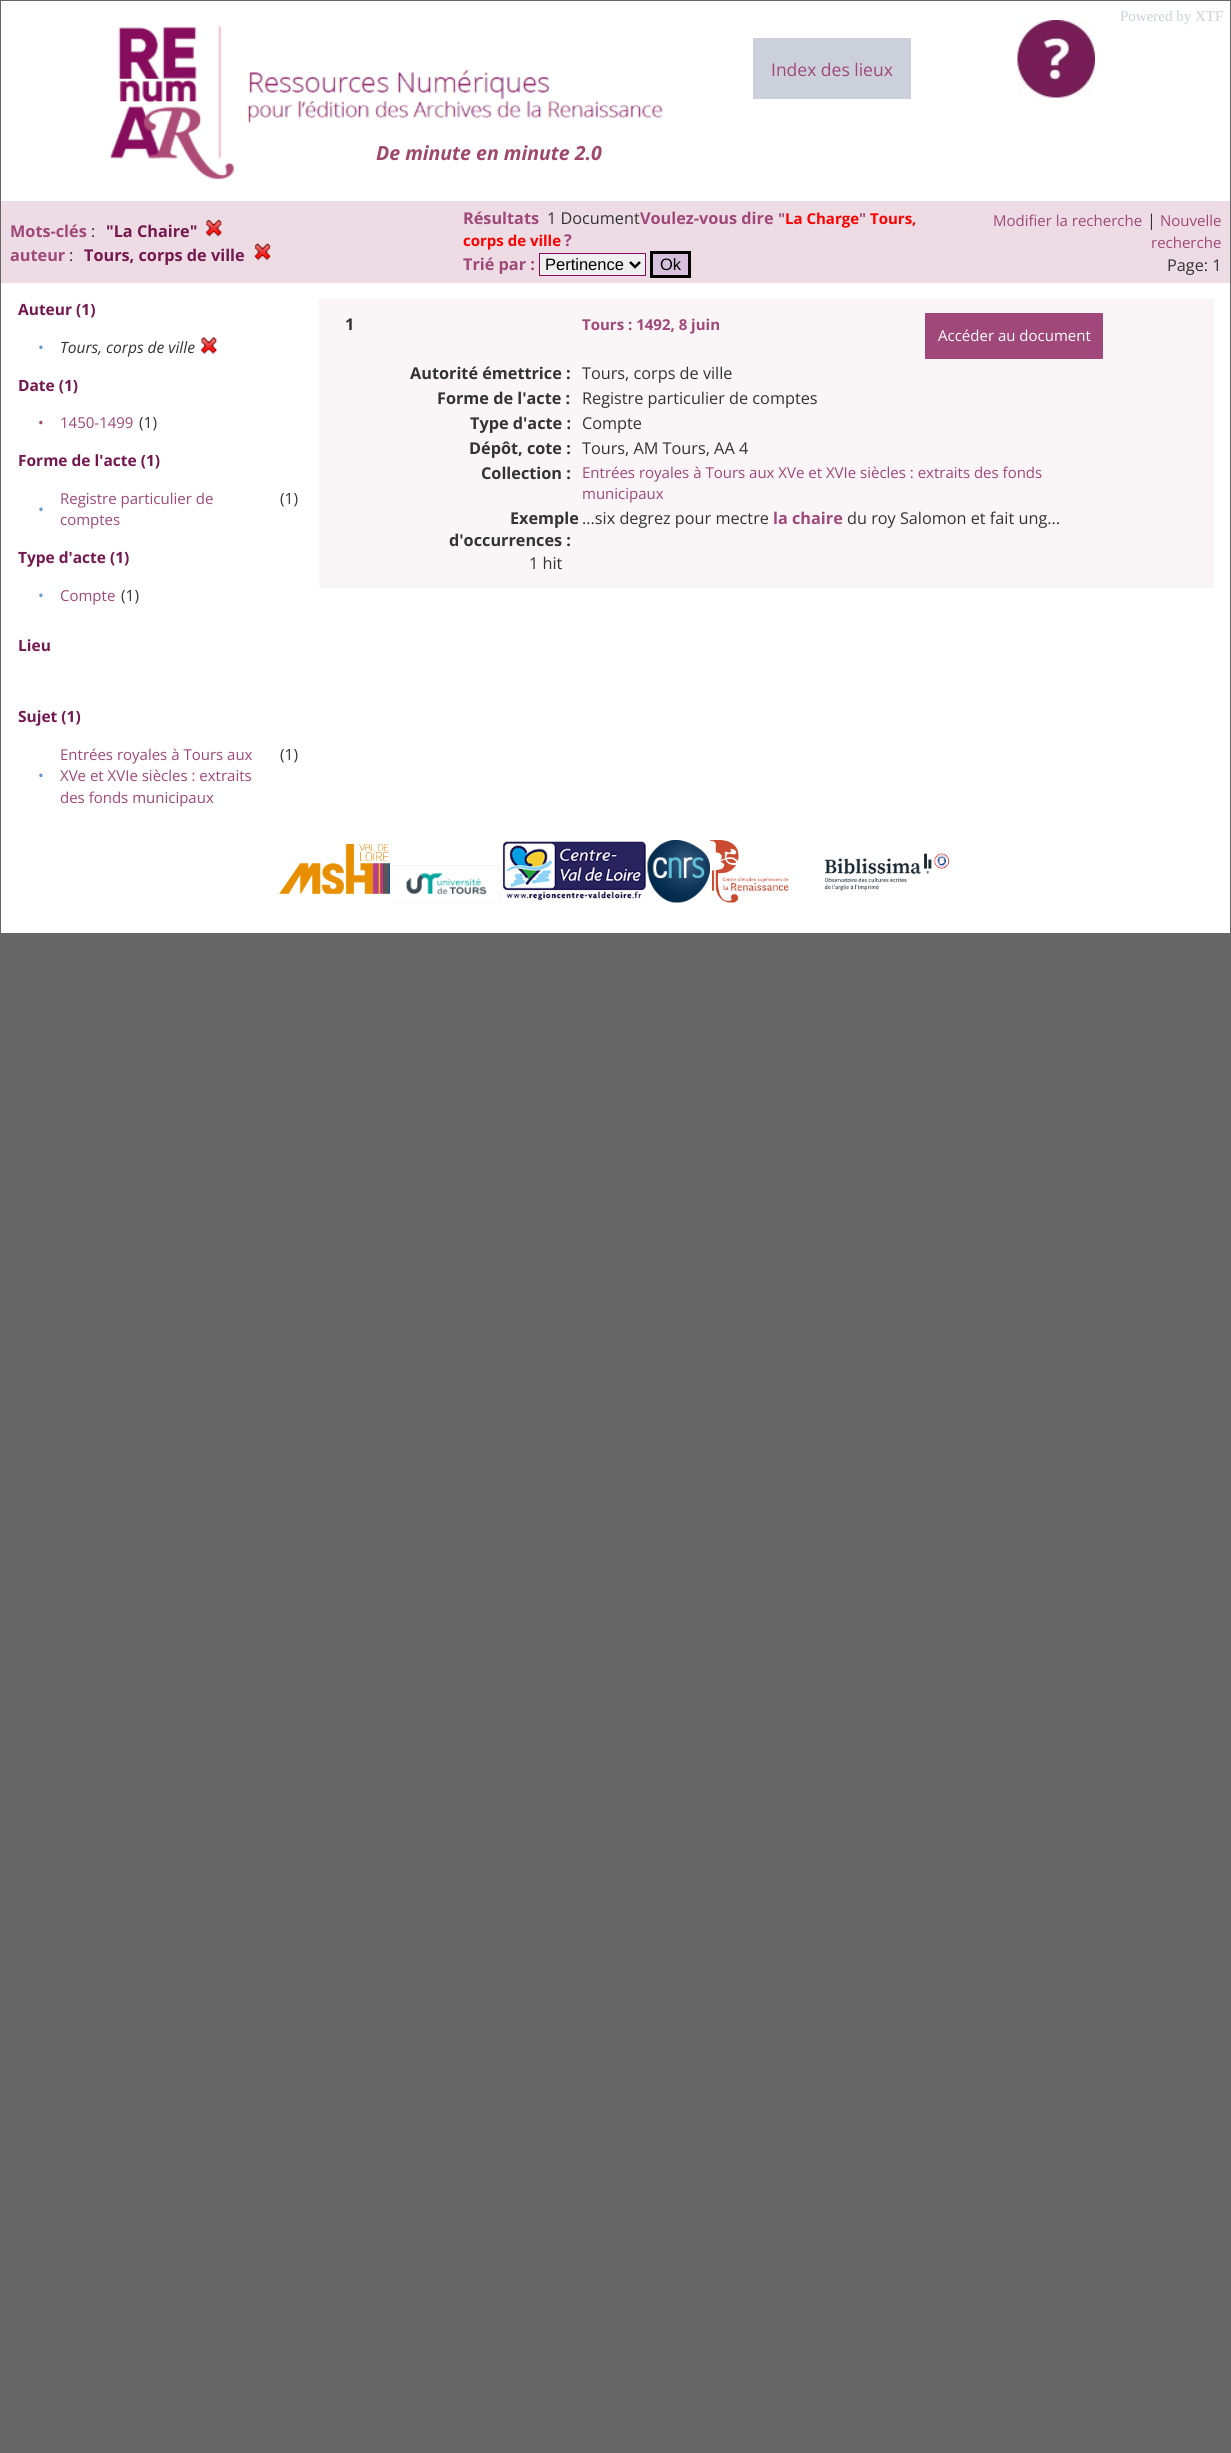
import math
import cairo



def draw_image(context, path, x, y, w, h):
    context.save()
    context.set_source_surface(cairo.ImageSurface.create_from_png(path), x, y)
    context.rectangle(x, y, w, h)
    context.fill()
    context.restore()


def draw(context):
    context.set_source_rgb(102 / 255, 102 / 255, 102 / 255)
    context.paint()
    context.set_source_rgb(1, 1, 1)
    context.rectangle(1, 1, 1229, 200)
    context.fill()
    draw_image(context, "images/1.png", 110, 26, 553, 154)
    context.set_source_rgb(204 / 255, 208 / 255, 219 / 255)
    context.rectangle(753, 38, 158, 61)
    context.fill()
    draw_image(context, "images/2.png", 1017, 20, 78, 78)
    context.set_source_rgb(237 / 255, 220 / 255, 227 / 255)
    context.rectangle(1, 201, 1229, 82)
    context.fill()
    draw_image(context, "images/3.png", 206, 219, 16, 18)
    draw_image(context, "images/4.png", 254, 243, 17, 18)
    context.set_source_rgb(239 / 255, 239 / 255, 239 / 255)
    context.rectangle(539.5, 253.5, 106, 22)
    context.fill_preserve()
    context.set_source_rgb(136 / 255, 12 / 255, 94 / 255)
    context.set_line_width(1)
    context.stroke()
    context.new_path()
    context.move_to(630, 262)
    context.line_to(635, 267)
    context.line_to(640, 262)
    context.set_source_rgb(0, 0, 0)
    context.set_line_width(2.5)
    context.stroke()
    context.set_source_rgb(214 / 255, 192 / 255, 219 / 255)
    context.rectangle(651.5, 252.5, 38, 24)
    context.fill_preserve()
    context.set_source_rgb(0, 0, 0)
    context.set_line_width(3)
    context.stroke()
    context.set_source_rgb(1, 1, 1)
    context.rectangle(1, 283, 1229, 650)
    context.fill()
    draw_image(context, "images/5.png", 201, 337, 16, 17)
    context.set_source_rgb(250 / 255, 245 / 255, 247 / 255)
    context.rectangle(319, 299, 895, 289)
    context.fill()
    context.set_source_rgb(159 / 255, 72 / 255, 121 / 255)
    context.rectangle(925, 313, 178, 46)
    context.fill()
    draw_image(context, "images/6.png", 279, 844, 111, 50)
    draw_image(context, "images/7.png", 392, 865, 109, 38)
    draw_image(context, "images/8.png", 502, 841, 144, 60)
    draw_image(context, "images/9.png", 647, 840, 63, 63)
    draw_image(context, "images/10.png", 710, 840, 79, 63)
    draw_image(context, "images/11.png", 824, 853, 126, 38)
    context.select_font_face("Liberation Serif")
    context.set_font_size(15)
    context.set_source_rgb(204 / 255, 208 / 255, 219 / 255)
    context.move_to(1120, 21)
    context.show_text("Powered by XTF")
    context.select_font_face("Open Sans")
    context.set_font_size(17.5)
    context.set_source_rgb(159 / 255, 72 / 255, 121 / 255)
    context.move_to(771, 76)
    context.show_text("Index des lieux")
    context.select_font_face("Open Sans", cairo.FontSlant.ITALIC, cairo.FontWeight.BOLD)
    context.set_font_size(19.5)
    context.set_source_rgb(159 / 255, 72 / 255, 108 / 255)
    context.move_to(376, 160)
    context.show_text("De minute en minute 2.0")
    context.select_font_face("Open Sans", cairo.FontSlant.NORMAL, cairo.FontWeight.BOLD)
    context.set_font_size(16.25)
    context.set_source_rgb(159 / 255, 72 / 255, 121 / 255)
    context.move_to(10, 237)
    context.show_text("Mots-clés")
    context.select_font_face("Open Sans")
    context.set_source_rgb(51 / 255, 51 / 255, 51 / 255)
    context.move_to(91, 237)
    context.show_text(":")
    context.select_font_face("Open Sans", cairo.FontSlant.NORMAL, cairo.FontWeight.BOLD)
    context.set_source_rgb(116 / 255, 24 / 255, 79 / 255)
    context.move_to(106, 237)
    context.show_text("\"La Chaire\"")
    context.set_source_rgb(159 / 255, 72 / 255, 121 / 255)
    context.move_to(10, 261)
    context.show_text("auteur")
    context.select_font_face("Open Sans")
    context.set_source_rgb(51 / 255, 51 / 255, 51 / 255)
    context.move_to(69, 261)
    context.show_text(":")
    context.select_font_face("Open Sans", cairo.FontSlant.NORMAL, cairo.FontWeight.BOLD)
    context.set_source_rgb(116 / 255, 24 / 255, 79 / 255)
    context.move_to(84, 261)
    context.show_text("Tours, corps de ville")
    context.set_source_rgb(159 / 255, 72 / 255, 121 / 255)
    context.move_to(463, 224)
    context.show_text("Résultats")
    context.select_font_face("Open Sans")
    context.set_source_rgb(51 / 255, 51 / 255, 51 / 255)
    context.move_to(547, 224)
    context.show_text("1 Document")
    context.select_font_face("Open Sans", cairo.FontSlant.NORMAL, cairo.FontWeight.BOLD)
    context.set_source_rgb(159 / 255, 72 / 255, 121 / 255)
    context.move_to(640, 224)
    context.show_text("Voulez-vous dire")
    context.set_font_size(15)
    context.move_to(778, 224)
    context.show_text("\"")
    context.set_source_rgb(1, 0, 0)
    context.move_to(785, 224)
    context.show_text("La Charge")
    context.set_source_rgb(159 / 255, 72 / 255, 121 / 255)
    context.move_to(859, 224)
    context.show_text("\"")
    context.set_source_rgb(1, 0, 0)
    context.move_to(870, 224)
    context.show_text("Tours,")
    context.move_to(463, 246)
    context.show_text("corps de ville")
    context.set_font_size(16.25)
    context.set_source_rgb(159 / 255, 72 / 255, 121 / 255)
    context.move_to(564, 246)
    context.show_text("?")
    context.move_to(463, 270)
    context.show_text("Trié par :")
    context.select_font_face("Liberation Sans")
    context.set_font_size(16.5)
    context.set_source_rgb(0, 0, 0)
    context.move_to(545, 270)
    context.show_text("Pertinence")
    context.move_to(660, 270)
    context.show_text("Ok")
    context.select_font_face("Open Sans")
    context.set_font_size(15)
    context.set_source_rgb(159 / 255, 72 / 255, 121 / 255)
    context.move_to(993, 226)
    context.show_text("Modifier la recherche")
    context.set_font_size(16.25)
    context.set_source_rgb(51 / 255, 51 / 255, 51 / 255)
    context.move_to(1147, 226)
    context.show_text("|")
    context.set_font_size(15)
    context.set_source_rgb(159 / 255, 72 / 255, 121 / 255)
    context.move_to(1160, 226)
    context.show_text("Nouvelle")
    context.move_to(1151, 248)
    context.show_text("recherche")
    context.set_font_size(16.25)
    context.set_source_rgb(51 / 255, 51 / 255, 51 / 255)
    context.move_to(1167, 271)
    context.show_text("Page: 1")
    context.select_font_face("Open Sans", cairo.FontSlant.NORMAL, cairo.FontWeight.BOLD)
    context.set_font_size(15.5)
    context.set_source_rgb(116 / 255, 24 / 255, 79 / 255)
    context.move_to(18, 315)
    context.show_text("Auteur (1)")
    context.select_font_face("Open Sans")
    context.set_source_rgb(102 / 255, 153 / 255, 204 / 255)
    context.move_to(38, 353)
    context.show_text("•")
    context.select_font_face("Open Sans", cairo.FontSlant.ITALIC)
    context.set_source_rgb(51 / 255, 51 / 255, 51 / 255)
    context.move_to(60, 353)
    context.show_text("Tours, corps de ville")
    context.select_font_face("Open Sans", cairo.FontSlant.NORMAL, cairo.FontWeight.BOLD)
    context.set_source_rgb(116 / 255, 24 / 255, 79 / 255)
    context.move_to(18, 391)
    context.show_text("Date (1)")
    context.select_font_face("Open Sans")
    context.set_font_size(15)
    context.set_source_rgb(159 / 255, 72 / 255, 121 / 255)
    context.move_to(38, 428)
    context.show_text("•")
    context.move_to(60, 428)
    context.show_text("1450-1499")
    context.set_font_size(15.5)
    context.set_source_rgb(51 / 255, 51 / 255, 51 / 255)
    context.move_to(139, 428)
    context.show_text("(1)")
    context.select_font_face("Open Sans", cairo.FontSlant.NORMAL, cairo.FontWeight.BOLD)
    context.set_source_rgb(116 / 255, 24 / 255, 79 / 255)
    context.move_to(18, 466)
    context.show_text("Forme de l'acte (1)")
    context.select_font_face("Open Sans")
    context.set_font_size(15)
    context.set_source_rgb(159 / 255, 72 / 255, 121 / 255)
    context.move_to(60, 504)
    context.show_text("Registre particulier de")
    context.move_to(60, 525)
    context.show_text("comptes")
    context.set_font_size(15.5)
    context.set_source_rgb(51 / 255, 51 / 255, 51 / 255)
    context.move_to(280, 504)
    context.show_text("(1)")
    context.set_source_rgb(102 / 255, 153 / 255, 204 / 255)
    context.move_to(38, 515)
    context.show_text("•")
    context.select_font_face("Open Sans", cairo.FontSlant.NORMAL, cairo.FontWeight.BOLD)
    context.set_source_rgb(116 / 255, 24 / 255, 79 / 255)
    context.move_to(18, 563)
    context.show_text("Type d'acte (1)")
    context.select_font_face("Open Sans")
    context.set_source_rgb(102 / 255, 153 / 255, 204 / 255)
    context.move_to(38, 601)
    context.show_text("•")
    context.set_font_size(15)
    context.set_source_rgb(159 / 255, 72 / 255, 121 / 255)
    context.move_to(60, 601)
    context.show_text("Compte")
    context.set_font_size(15.5)
    context.set_source_rgb(51 / 255, 51 / 255, 51 / 255)
    context.move_to(121, 601)
    context.show_text("(1)")
    context.select_font_face("Open Sans", cairo.FontSlant.NORMAL, cairo.FontWeight.BOLD)
    context.set_source_rgb(116 / 255, 24 / 255, 79 / 255)
    context.move_to(18, 651)
    context.show_text("Lieu")
    context.move_to(18, 722)
    context.show_text("Sujet (1)")
    context.select_font_face("Open Sans")
    context.set_font_size(15)
    context.set_source_rgb(159 / 255, 72 / 255, 121 / 255)
    context.move_to(60, 760)
    context.show_text("Entrées royales à Tours aux")
    context.move_to(60, 781)
    context.show_text("XVe et XVIe siècles : extraits")
    context.move_to(60, 803)
    context.show_text("des fonds municipaux")
    context.set_font_size(15.5)
    context.set_source_rgb(51 / 255, 51 / 255, 51 / 255)
    context.move_to(280, 760)
    context.show_text("(1)")
    context.set_source_rgb(102 / 255, 153 / 255, 204 / 255)
    context.move_to(38, 781)
    context.show_text("•")
    context.select_font_face("Open Sans", cairo.FontSlant.NORMAL, cairo.FontWeight.BOLD)
    context.set_font_size(16.25)
    context.set_source_rgb(51 / 255, 51 / 255, 51 / 255)
    context.move_to(345, 330)
    context.show_text("1")
    context.set_font_size(15)
    context.set_source_rgb(159 / 255, 72 / 255, 121 / 255)
    context.move_to(582, 330)
    context.show_text("Tours : 1492, 8 juin")
    context.select_font_face("Open Sans")
    context.set_source_rgb(1, 1, 1)
    context.move_to(938, 341)
    context.show_text("Accéder au document")
    context.select_font_face("Open Sans", cairo.FontSlant.NORMAL, cairo.FontWeight.BOLD)
    context.set_font_size(16.25)
    context.set_source_rgb(51 / 255, 51 / 255, 51 / 255)
    context.move_to(410, 379)
    context.show_text("Autorité émettrice :")
    context.select_font_face("Open Sans")
    context.move_to(582, 379)
    context.show_text("Tours, corps de ville")
    context.select_font_face("Open Sans", cairo.FontSlant.NORMAL, cairo.FontWeight.BOLD)
    context.move_to(437, 404)
    context.show_text("Forme de l'acte :")
    context.select_font_face("Open Sans")
    context.move_to(582, 404)
    context.show_text("Registre particulier de comptes")
    context.select_font_face("Open Sans", cairo.FontSlant.NORMAL, cairo.FontWeight.BOLD)
    context.move_to(470, 429)
    context.show_text("Type d'acte :")
    context.select_font_face("Open Sans")
    context.move_to(582, 429)
    context.show_text("Compte")
    context.select_font_face("Open Sans", cairo.FontSlant.NORMAL, cairo.FontWeight.BOLD)
    context.move_to(469, 454)
    context.show_text("Dépôt, cote :")
    context.select_font_face("Open Sans")
    context.move_to(582, 454)
    context.show_text("Tours, AM Tours, AA 4")
    context.select_font_face("Open Sans", cairo.FontSlant.NORMAL, cairo.FontWeight.BOLD)
    context.move_to(481, 479)
    context.show_text("Collection :")
    context.select_font_face("Open Sans")
    context.set_font_size(15)
    context.set_source_rgb(159 / 255, 72 / 255, 121 / 255)
    context.move_to(582, 478)
    context.show_text("Entrées royales à Tours aux XVe et XVIe siècles : extraits des fonds")
    context.move_to(582, 499)
    context.show_text("municipaux")
    context.select_font_face("Open Sans", cairo.FontSlant.NORMAL, cairo.FontWeight.BOLD)
    context.set_font_size(16.25)
    context.set_source_rgb(51 / 255, 51 / 255, 51 / 255)
    context.move_to(510, 524)
    context.show_text("Exemple")
    context.move_to(449, 546)
    context.show_text("d'occurrences :")
    context.select_font_face("Open Sans")
    context.move_to(529, 569)
    context.show_text("1 hit")
    context.move_to(582, 524)
    context.show_text("...six degrez pour mectre")
    context.select_font_face("Open Sans", cairo.FontSlant.NORMAL, cairo.FontWeight.BOLD)
    context.set_source_rgb(159 / 255, 72 / 255, 121 / 255)
    context.move_to(773, 524)
    context.show_text("la chaire")
    context.select_font_face("Open Sans")
    context.set_source_rgb(51 / 255, 51 / 255, 51 / 255)
    context.move_to(847, 524)
    context.show_text("du roy Salomon et fait ung...")


surface = cairo.ImageSurface(cairo.Format.RGB24, 1231, 2453)
context = cairo.Context(surface)
options = cairo.FontOptions()
options.set_hint_metrics(cairo.HintMetrics.OFF)
options.set_hint_style(cairo.HintStyle.NONE)
context.set_font_options(options)
context.set_miter_limit(4)
draw(context)
surface.write_to_png("out.png")
